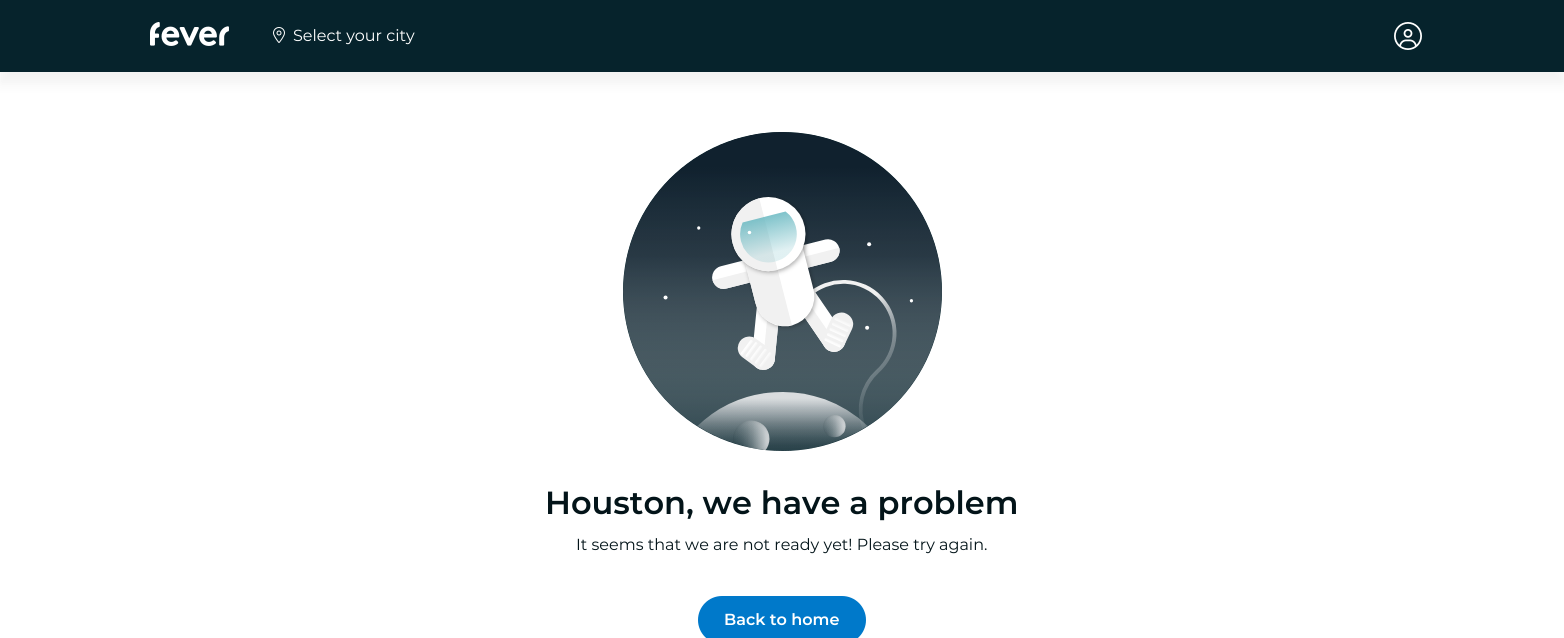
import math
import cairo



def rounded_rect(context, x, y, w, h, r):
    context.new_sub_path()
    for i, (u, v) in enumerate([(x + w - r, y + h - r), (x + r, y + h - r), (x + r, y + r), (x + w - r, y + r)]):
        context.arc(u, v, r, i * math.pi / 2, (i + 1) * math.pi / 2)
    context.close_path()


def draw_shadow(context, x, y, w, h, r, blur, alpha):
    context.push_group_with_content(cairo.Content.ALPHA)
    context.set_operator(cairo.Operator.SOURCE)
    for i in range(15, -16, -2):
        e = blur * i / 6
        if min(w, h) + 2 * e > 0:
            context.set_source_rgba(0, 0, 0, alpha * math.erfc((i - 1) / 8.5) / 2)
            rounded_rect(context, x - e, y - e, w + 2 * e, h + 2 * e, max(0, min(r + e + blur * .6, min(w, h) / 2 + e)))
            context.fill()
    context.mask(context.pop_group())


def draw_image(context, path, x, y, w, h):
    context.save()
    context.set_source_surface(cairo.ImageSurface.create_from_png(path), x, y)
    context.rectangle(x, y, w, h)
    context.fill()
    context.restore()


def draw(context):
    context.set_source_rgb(1, 1, 1)
    context.paint()
    context.set_source_rgb(0, 0, 0)
    draw_shadow(context, 0, 12, 1564, 72, 0, 6, 0.05)
    context.set_source_rgb(6 / 255, 35 / 255, 44 / 255)
    context.rectangle(0, 0, 1564, 72)
    context.fill()
    draw_image(context, "images/1.png", 150, 22, 79, 24)
    draw_image(context, "images/2.png", 273, 27, 12, 16)
    draw_image(context, "images/3.png", 1394, 22, 28, 28)
    context.arc(782.5, 291.5, 159.5, 0, 2 * math.pi)
    context.fill()
    draw_image(context, "images/4.png", 623, 132, 319, 319)
    context.set_source_rgb(0, 121 / 255, 202 / 255)
    rounded_rect(context, 698, 596, 168, 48, 24)
    context.fill()
    context.select_font_face("Montserrat")
    context.set_font_size(16)
    context.set_source_rgb(1, 1, 1)
    context.move_to(293, 41)
    context.show_text("Select your city")
    context.select_font_face("Montserrat SemiBold")
    context.set_font_size(32)
    context.set_source_rgb(3 / 255, 20 / 255, 25 / 255)
    context.move_to(545, 514)
    context.show_text("Houston, we have a problem")
    context.select_font_face("Montserrat")
    context.set_font_size(16)
    context.move_to(576, 550)
    context.show_text("It seems that we are not ready yet! Please try again.")
    context.select_font_face("Montserrat SemiBold")
    context.set_source_rgb(1, 1, 1)
    context.move_to(724, 625)
    context.show_text("Back to home")


surface = cairo.ImageSurface(cairo.Format.RGB24, 1564, 638)
context = cairo.Context(surface)
options = cairo.FontOptions()
options.set_hint_metrics(cairo.HintMetrics.OFF)
options.set_hint_style(cairo.HintStyle.NONE)
context.set_font_options(options)
context.set_miter_limit(4)
draw(context)
surface.write_to_png("out.png")
